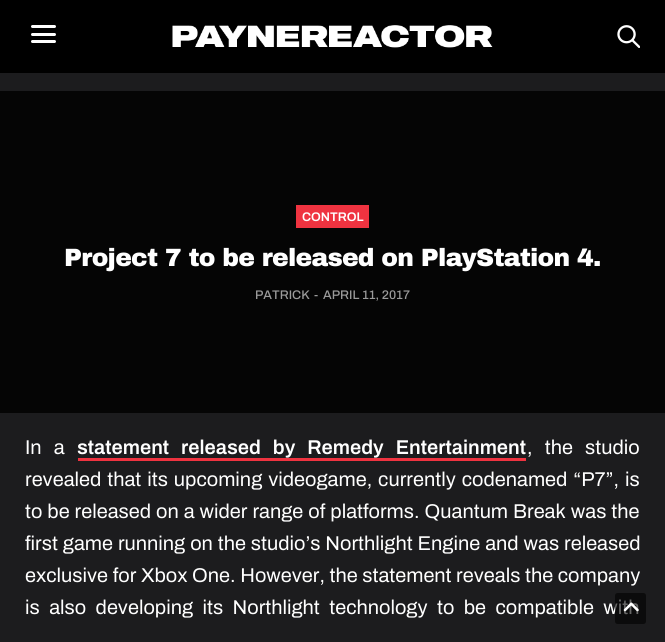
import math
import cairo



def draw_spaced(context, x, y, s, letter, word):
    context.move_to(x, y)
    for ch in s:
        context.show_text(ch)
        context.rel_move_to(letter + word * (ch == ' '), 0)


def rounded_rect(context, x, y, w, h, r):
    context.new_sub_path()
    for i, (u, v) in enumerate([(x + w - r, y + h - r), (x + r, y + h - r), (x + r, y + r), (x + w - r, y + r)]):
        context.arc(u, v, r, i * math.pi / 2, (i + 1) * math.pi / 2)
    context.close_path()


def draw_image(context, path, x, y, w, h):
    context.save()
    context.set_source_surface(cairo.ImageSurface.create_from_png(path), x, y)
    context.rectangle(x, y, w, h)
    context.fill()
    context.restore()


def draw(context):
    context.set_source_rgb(28 / 255, 28 / 255, 30 / 255)
    context.paint()
    context.set_source_rgb(0, 0, 0)
    context.rectangle(0, 0, 665, 73)
    context.fill()
    context.set_source_rgb(1, 1, 1)
    rounded_rect(context, 31, 25, 25, 3, 1.5)
    context.fill()
    rounded_rect(context, 31, 33, 25, 3, 1.5)
    context.fill()
    rounded_rect(context, 31, 40, 25, 3, 1.5)
    context.fill()
    draw_image(context, "images/1.png", 172, 25, 321, 23)
    draw_image(context, "images/2.png", 617, 25, 23, 23)
    context.set_source_rgb(5 / 255, 5 / 255, 5 / 255)
    context.rectangle(0, 91, 665, 322)
    context.fill()
    context.set_source_rgb(239 / 255, 51 / 255, 64 / 255)
    context.rectangle(296, 205, 73, 23)
    context.fill()
    context.rectangle(78, 458, 448, 3)
    context.fill()
    context.select_font_face("Archivo SemiBold")
    context.set_font_size(12.5)
    context.set_source_rgb(1, 1, 1)
    context.move_to(302, 221)
    context.show_text("CONTROL")
    context.select_font_face("Archivo Black Black")
    context.set_font_size(25)
    draw_spaced(context, 64, 266, "Project 7 to be released on PlayStation 4.", -0.75, 0)
    context.select_font_face("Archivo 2 SemiBold")
    context.set_font_size(12.5)
    context.set_source_rgb(155 / 255, 155 / 255, 155 / 255)
    context.move_to(255, 299)
    context.show_text("PATRICK")
    context.move_to(314, 299)
    context.show_text("-")
    context.move_to(323, 299)
    context.show_text("APRIL 11, 2017")
    context.select_font_face("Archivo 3 SemiBold")
    context.set_font_size(20)
    context.set_source_rgb(1, 1, 1)
    draw_spaced(context, 25, 454, "In a", 0, 8)
    context.select_font_face("Archivo SemiBold")
    draw_spaced(context, 77, 454, "statement released by Remedy Entertainment", 0, 8)
    context.select_font_face("Archivo 3 SemiBold")
    draw_spaced(context, 527, 454, ", the studio", 0, 8)
    draw_spaced(context, 25, 486, "revealed that its upcoming videogame, currently codenamed “P7”, is", 0, 1.75)
    draw_spaced(context, 25, 518, "to be released on a wider range of platforms. Quantum Break was the", 0, 0.8)
    draw_spaced(context, 25, 550, "first game running on the studio’s Northlight Engine and was released", 0, 0.75)
    draw_spaced(context, 25, 582, "exclusive for Xbox One. However, the statement reveals the company", 0, 0.4)
    draw_spaced(context, 25, 614, "is also developing its Northlight technology to be compatible with", 0, 5.25)
    context.set_source_rgba(0, 0, 0, 0.6)
    rounded_rect(context, 615, 593, 31, 31, 2.5)
    context.fill()
    draw_image(context, "images/3.png", 623, 602, 16, 10)


surface = cairo.ImageSurface(cairo.Format.RGB24, 665, 642)
context = cairo.Context(surface)
options = cairo.FontOptions()
options.set_hint_metrics(cairo.HintMetrics.OFF)
options.set_hint_style(cairo.HintStyle.NONE)
context.set_font_options(options)
context.set_miter_limit(4)
draw(context)
surface.write_to_png("out.png")
